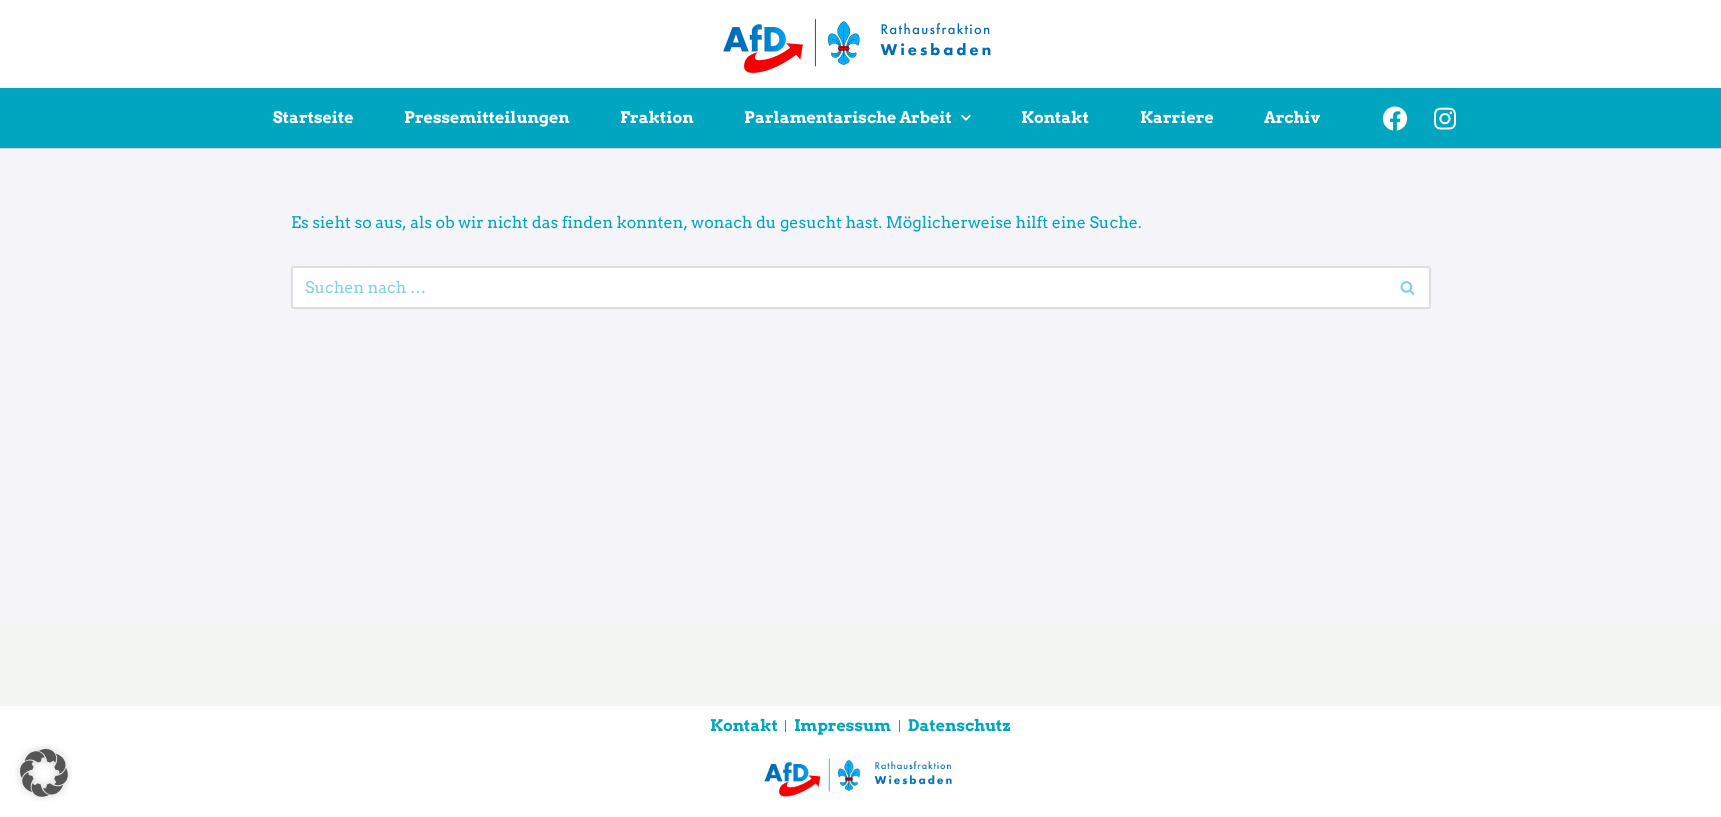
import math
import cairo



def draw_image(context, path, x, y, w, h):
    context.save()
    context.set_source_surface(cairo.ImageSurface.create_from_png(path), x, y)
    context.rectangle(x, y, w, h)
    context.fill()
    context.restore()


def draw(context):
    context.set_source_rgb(245 / 255, 245 / 255, 249 / 255)
    context.paint()
    context.set_source_rgb(1, 1, 1)
    context.rectangle(0, 0, 1721, 88)
    context.fill()
    draw_image(context, "images/1.png", 723, 19, 268, 54)
    context.set_source_rgb(211 / 255, 211 / 255, 211 / 255)
    context.rectangle(0, 148, 1721, 1)
    context.fill()
    context.set_source_rgb(0, 166 / 255, 191 / 255)
    context.rectangle(0, 88, 1721, 60)
    context.fill()
    draw_image(context, "images/2.png", 961, 115, 10, 6)
    draw_image(context, "images/3.png", 1382, 106, 26, 25)
    draw_image(context, "images/4.png", 1434, 107, 22, 23)
    context.set_source_rgb(1, 1, 1)
    context.new_path()
    context.move_to(294, 266)
    context.line_to(1386, 266)
    context.line_to(1386, 309)
    context.line_to(294, 309)
    context.curve_to(292.5, 309, 291, 307.5, 291, 306)
    context.line_to(291, 269)
    context.curve_to(291, 267.5, 292.5, 266, 294, 266)
    context.close_path()
    context.fill()
    context.set_source_rgb(221 / 255, 221 / 255, 221 / 255)
    context.set_fill_rule(cairo.FillRule.EVEN_ODD)
    context.new_path()
    context.move_to(294, 266)
    context.line_to(1386, 266)
    context.line_to(1386, 309)
    context.line_to(294, 309)
    context.curve_to(292, 309, 291, 308, 291, 306)
    context.line_to(291, 269)
    context.curve_to(291, 267, 292, 266, 294, 266)
    context.close_path()
    context.move_to(294, 268)
    context.line_to(1386, 268)
    context.line_to(1386, 307)
    context.line_to(294, 307)
    context.curve_to(293, 307, 293, 307, 293, 306)
    context.line_to(293, 269)
    context.curve_to(293, 268, 293, 268, 294, 268)
    context.close_path()
    context.fill()
    context.set_source_rgb(1, 1, 1)
    context.new_path()
    context.move_to(1386, 266)
    context.line_to(1428, 266)
    context.curve_to(1429.5, 266, 1431, 267.5, 1431, 269)
    context.line_to(1431, 306)
    context.curve_to(1431, 307.5, 1429.5, 309, 1428, 309)
    context.line_to(1386, 309)
    context.close_path()
    context.fill()
    context.set_source_rgb(221 / 255, 221 / 255, 221 / 255)
    context.new_path()
    context.move_to(1386, 266)
    context.line_to(1428, 266)
    context.curve_to(1430, 266, 1431, 267, 1431, 269)
    context.line_to(1431, 306)
    context.curve_to(1431, 308, 1430, 309, 1428, 309)
    context.line_to(1386, 309)
    context.close_path()
    context.move_to(1386, 268)
    context.line_to(1428, 268)
    context.curve_to(1429, 268, 1429, 268, 1429, 269)
    context.line_to(1429, 306)
    context.curve_to(1429, 307, 1429, 307, 1428, 307)
    context.line_to(1386, 307)
    context.close_path()
    context.fill()
    draw_image(context, "images/5.png", 1400, 281, 15, 14)
    context.set_source_rgb(242 / 255, 244 / 255, 242 / 255)
    context.rectangle(0, 625, 1721, 81)
    context.fill()
    context.set_source_rgb(1, 1, 1)
    context.rectangle(0, 706, 1721, 111)
    context.fill()
    context.set_source_rgb(0, 166 / 255, 191 / 255)
    context.rectangle(785, 720, 1, 12)
    context.fill()
    context.rectangle(899, 720, 1, 12)
    context.fill()
    draw_image(context, "images/6.png", 764, 758, 188, 39)
    draw_image(context, "images/7.png", 15, 744, 57, 57)
    context.select_font_face("Arvo", cairo.FontSlant.NORMAL, cairo.FontWeight.BOLD)
    context.set_font_size(16)
    context.set_source_rgb(1, 1, 1)
    context.move_to(273, 123)
    context.show_text("Startseite")
    context.move_to(404, 123)
    context.show_text("Pressemitteilungen")
    context.move_to(620, 123)
    context.show_text("Fraktion")
    context.move_to(744, 123)
    context.show_text("Parlamentarische Arbeit")
    context.move_to(1021, 123)
    context.show_text("Kontakt")
    context.move_to(1140, 123)
    context.show_text("Karriere")
    context.move_to(1264, 123)
    context.show_text("Archiv")
    context.select_font_face("Arvo")
    context.set_source_rgb(0, 166 / 255, 191 / 255)
    context.move_to(291, 228)
    context.show_text("Es sieht so aus, als ob wir nicht das finden konnten, wonach du gesucht hast. Möglicherweise hilft eine Suche.")
    context.set_source_rgb(128 / 255, 211 / 255, 223 / 255)
    context.move_to(305, 293)
    context.show_text("Suchen nach …")
    context.select_font_face("Arvo", cairo.FontSlant.NORMAL, cairo.FontWeight.BOLD)
    context.set_source_rgb(0, 166 / 255, 191 / 255)
    context.move_to(710, 731)
    context.show_text("Kontakt")
    context.move_to(794, 731)
    context.show_text("Impressum")
    context.move_to(908, 731)
    context.show_text("Datenschutz")


surface = cairo.ImageSurface(cairo.Format.RGB24, 1721, 817)
context = cairo.Context(surface)
options = cairo.FontOptions()
options.set_hint_metrics(cairo.HintMetrics.OFF)
options.set_hint_style(cairo.HintStyle.NONE)
context.set_font_options(options)
context.set_miter_limit(4)
draw(context)
surface.write_to_png("out.png")
